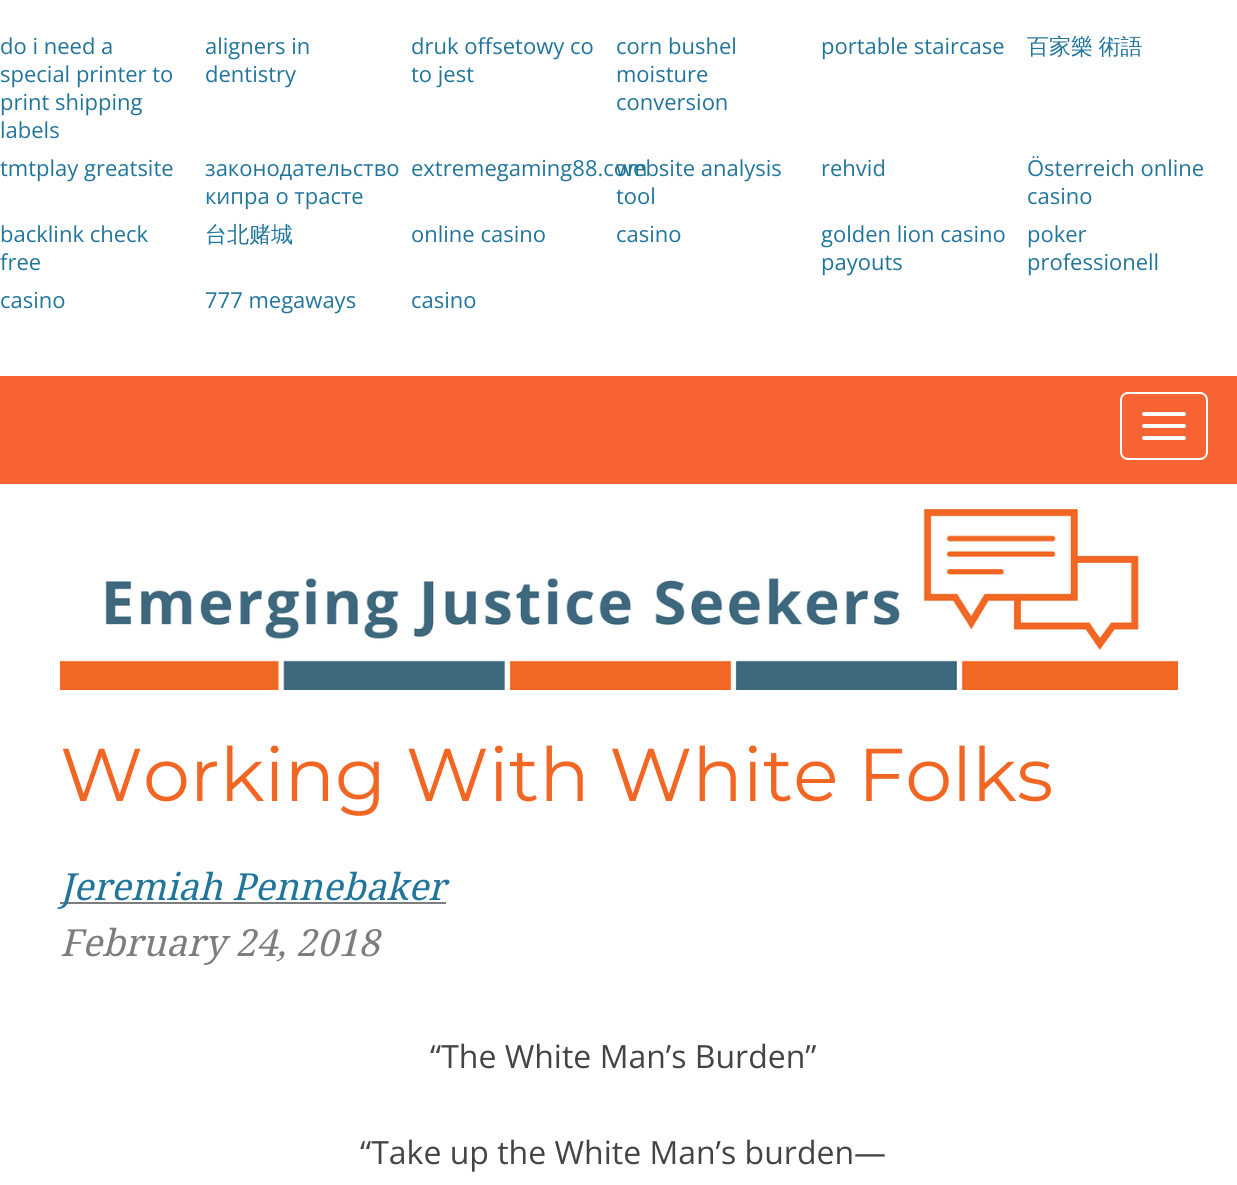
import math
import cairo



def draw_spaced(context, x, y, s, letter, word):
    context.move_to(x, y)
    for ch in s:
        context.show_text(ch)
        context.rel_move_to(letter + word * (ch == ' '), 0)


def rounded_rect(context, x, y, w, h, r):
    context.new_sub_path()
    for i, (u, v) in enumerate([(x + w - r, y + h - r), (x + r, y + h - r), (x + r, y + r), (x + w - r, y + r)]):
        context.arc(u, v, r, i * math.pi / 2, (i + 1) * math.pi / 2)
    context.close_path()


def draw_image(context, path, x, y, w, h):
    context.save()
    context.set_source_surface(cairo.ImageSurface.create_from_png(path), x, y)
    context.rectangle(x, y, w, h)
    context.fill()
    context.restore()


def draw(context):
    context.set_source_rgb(1, 1, 1)
    context.paint()
    context.set_source_rgb(248 / 255, 99 / 255, 52 / 255)
    context.rectangle(0, 376, 1237, 108)
    context.fill()
    rounded_rect(context, 1121, 393, 86, 66, 7)
    context.set_source_rgb(1, 1, 1)
    context.stroke()
    rounded_rect(context, 1142, 412, 44, 4, 2)
    context.fill()
    rounded_rect(context, 1142, 424, 44, 4, 2)
    context.fill()
    rounded_rect(context, 1142, 436, 44, 4, 2)
    context.fill()
    draw_image(context, "images/1.png", 60, 509, 1118, 181)
    context.set_source_rgb(125 / 255, 125 / 255, 125 / 255)
    context.rectangle(60, 902, 386, 2)
    context.fill()
    context.select_font_face("Open Sans")
    context.set_font_size(22)
    context.set_source_rgb(33 / 255, 117 / 255, 155 / 255)
    context.move_to(0, 54)
    context.show_text("do i need a")
    context.move_to(0, 82)
    context.show_text("special printer to")
    context.move_to(0, 110)
    context.show_text("print shipping")
    context.move_to(0, 138)
    context.show_text("labels")
    context.move_to(205, 54)
    context.show_text("aligners in")
    context.move_to(205, 82)
    context.show_text("dentistry")
    context.move_to(411, 54)
    context.show_text("druk offsetowy co")
    context.move_to(411, 82)
    context.show_text("to jest")
    context.move_to(616, 54)
    context.show_text("corn bushel")
    context.move_to(616, 82)
    context.show_text("moisture")
    context.move_to(616, 110)
    context.show_text("conversion")
    context.move_to(821, 54)
    context.show_text("portable staircase")
    context.select_font_face("WenQuanYi Zen Hei Medium")
    draw_spaced(context, 1027, 54, "百家樂 術語", 0, -1)
    context.select_font_face("Open Sans")
    context.move_to(0, 176)
    context.show_text("tmtplay greatsite")
    context.move_to(205, 176)
    context.show_text("законодательство")
    context.move_to(205, 204)
    context.show_text("кипра о трасте")
    context.move_to(411, 176)
    context.show_text("extremegaming88.com")
    context.move_to(616, 176)
    context.show_text("website analysis")
    context.move_to(616, 204)
    context.show_text("tool")
    context.move_to(821, 176)
    context.show_text("rehvid")
    context.move_to(1027, 176)
    context.show_text("Österreich online")
    context.move_to(1027, 204)
    context.show_text("casino")
    context.move_to(0, 242)
    context.show_text("backlink check")
    context.move_to(0, 270)
    context.show_text("free")
    context.select_font_face("WenQuanYi Zen Hei Medium")
    context.move_to(205, 242)
    context.show_text("台北赌城")
    context.select_font_face("Open Sans")
    context.move_to(411, 242)
    context.show_text("online casino")
    context.move_to(616, 242)
    context.show_text("casino")
    context.move_to(821, 242)
    context.show_text("golden lion casino")
    context.move_to(821, 270)
    context.show_text("payouts")
    context.move_to(1027, 242)
    context.show_text("poker")
    context.move_to(1027, 270)
    context.show_text("professionell")
    context.move_to(0, 308)
    context.show_text("casino")
    context.move_to(205, 308)
    context.show_text("777 megaways")
    context.move_to(411, 308)
    context.show_text("casino")
    context.select_font_face("Montserrat Thin")
    context.set_font_size(74.7)
    context.set_source_rgb(242 / 255, 102 / 255, 35 / 255)
    context.move_to(60, 801)
    context.show_text("Working With White Folks")
    context.select_font_face("Droid Serif", cairo.FontSlant.ITALIC)
    context.set_font_size(37.25)
    context.set_source_rgb(33 / 255, 117 / 255, 155 / 255)
    context.move_to(60, 900)
    context.show_text("Jeremiah Pennebaker")
    context.set_source_rgb(125 / 255, 125 / 255, 125 / 255)
    context.move_to(60, 956)
    context.show_text("February 24, 2018")
    context.select_font_face("Open Sans")
    context.set_font_size(32)
    context.set_source_rgb(68 / 255, 68 / 255, 68 / 255)
    context.move_to(430, 1068)
    context.show_text("“The White Man’s Burden”")
    context.move_to(360, 1164)
    context.show_text("“Take up the White Man’s burden—")


surface = cairo.ImageSurface(cairo.Format.RGB24, 1237, 1185)
context = cairo.Context(surface)
options = cairo.FontOptions()
options.set_hint_metrics(cairo.HintMetrics.OFF)
options.set_hint_style(cairo.HintStyle.NONE)
context.set_font_options(options)
context.set_miter_limit(4)
draw(context)
surface.write_to_png("out.png")
